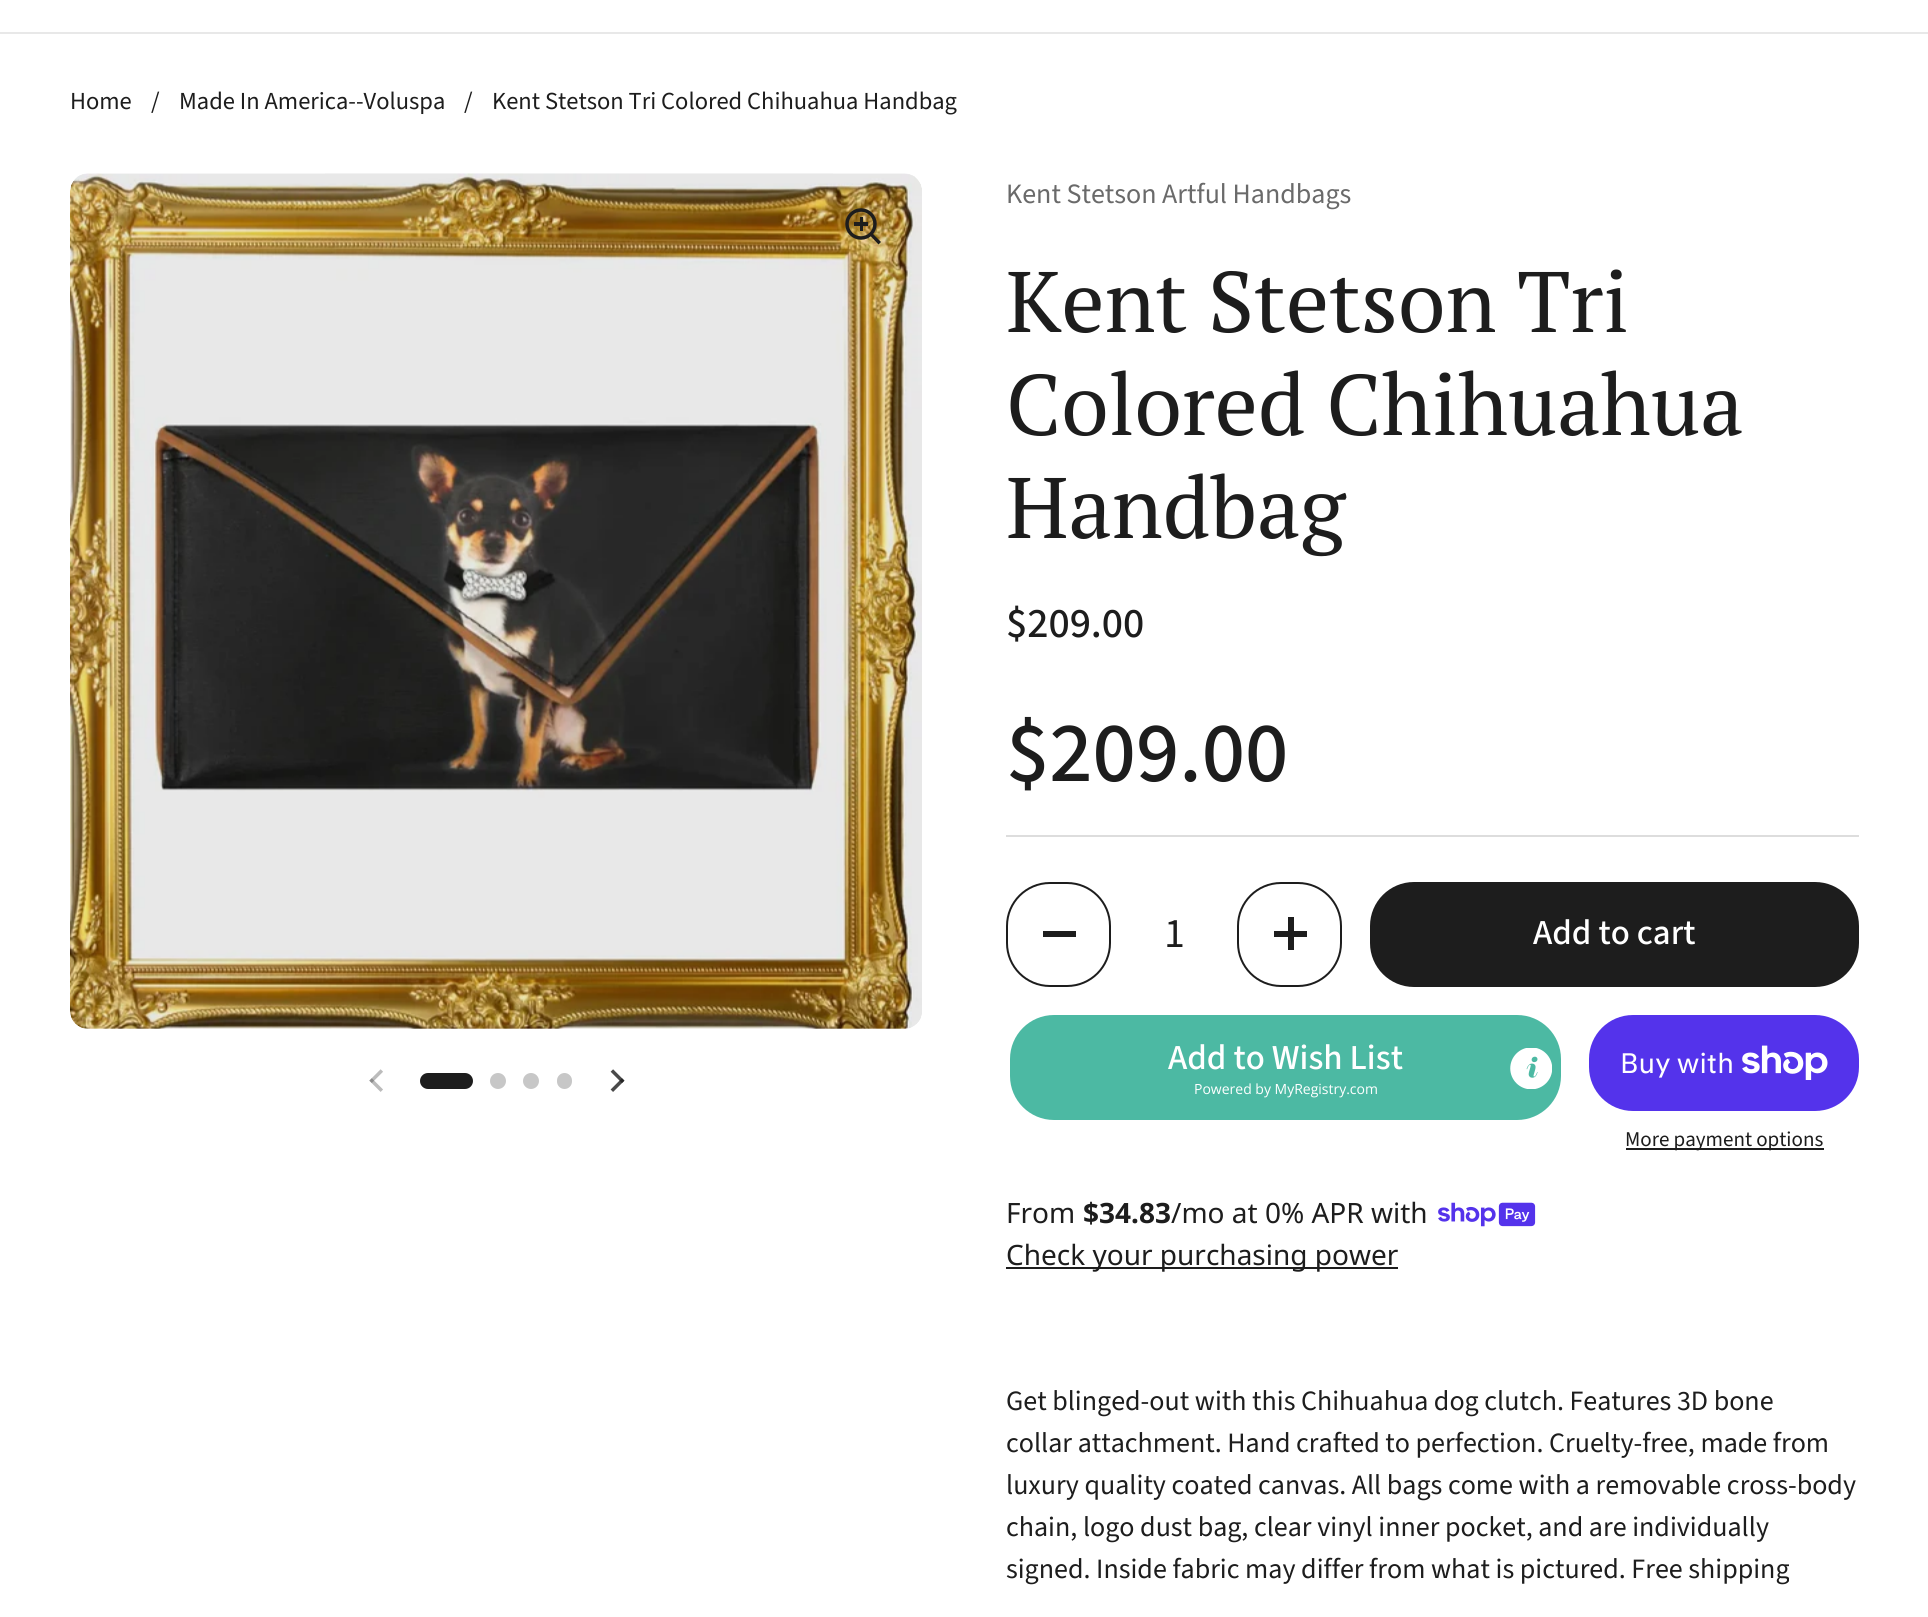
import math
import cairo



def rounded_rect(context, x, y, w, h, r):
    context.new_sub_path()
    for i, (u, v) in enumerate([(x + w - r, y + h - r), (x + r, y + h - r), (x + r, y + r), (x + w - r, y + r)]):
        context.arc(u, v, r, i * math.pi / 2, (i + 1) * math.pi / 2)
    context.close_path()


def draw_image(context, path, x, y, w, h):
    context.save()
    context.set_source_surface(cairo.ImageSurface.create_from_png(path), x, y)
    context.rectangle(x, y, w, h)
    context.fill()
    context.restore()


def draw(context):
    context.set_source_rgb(1, 1, 1)
    context.paint()
    context.set_source_rgb(232 / 255, 232 / 255, 232 / 255)
    context.rectangle(0, 32, 1928, 2)
    context.fill()
    draw_image(context, "images/1.png", 70, 173, 852, 856)
    context.arc(861, 224, 14, 0, 2 * math.pi)
    context.set_source_rgb(29 / 255, 29 / 255, 29 / 255)
    context.set_line_width(3.5)
    context.stroke()
    context.rectangle(860, 217, 3, 14)
    context.fill()
    context.rectangle(854, 222, 14, 4)
    context.fill()
    context.new_path()
    context.move_to(870.5, 236)
    context.line_to(872.5, 233.5)
    context.line_to(881, 242)
    context.line_to(878.5, 244.5)
    context.close_path()
    context.fill()
    draw_image(context, "images/2.png", 369, 1069, 14, 23)
    rounded_rect(context, 420, 1073, 53, 16, 8)
    context.fill()
    context.set_source_rgb(199 / 255, 199 / 255, 199 / 255)
    context.arc(498, 1081, 8, 0, 2 * math.pi)
    context.fill()
    context.arc(531, 1081, 8, 0, 2 * math.pi)
    context.fill()
    rounded_rect(context, 557, 1073, 15, 16, 7.5)
    context.fill()
    draw_image(context, "images/3.png", 610, 1069, 15, 23)
    context.set_source_rgb(221 / 255, 221 / 255, 221 / 255)
    context.rectangle(1006, 835, 853, 2)
    context.fill()
    rounded_rect(context, 1007, 883, 103, 103, 43)
    context.set_source_rgb(29 / 255, 29 / 255, 29 / 255)
    context.set_line_width(2)
    context.stroke()
    context.rectangle(1043, 931, 33, 6)
    context.fill()
    rounded_rect(context, 1238, 883, 103, 103, 43)
    context.stroke()
    context.rectangle(1288, 917, 6, 33)
    context.fill()
    context.rectangle(1274, 931, 33, 6)
    context.fill()
    rounded_rect(context, 1371, 883, 487, 103, 43)
    context.fill_preserve()
    context.stroke()
    context.set_source_rgb(76 / 255, 185 / 255, 163 / 255)
    rounded_rect(context, 1011, 1016, 549, 103, 43)
    context.fill_preserve()
    context.stroke()
    draw_image(context, "images/4.png", 1510, 1048, 42, 41)
    context.set_source_rgb(84 / 255, 51 / 255, 235 / 255)
    rounded_rect(context, 1589, 1015, 270, 96, 44)
    context.fill()
    draw_image(context, "images/5.png", 1742, 1045, 86, 35)
    context.set_source_rgb(29 / 255, 29 / 255, 29 / 255)
    context.rectangle(1626, 1148, 198, 2)
    context.fill()
    draw_image(context, "images/6.png", 1438, 1202, 98, 25)
    context.rectangle(1006, 1267, 392, 2)
    context.fill()
    context.select_font_face("Source Sans Pro")
    context.set_font_size(24.5)
    context.move_to(70, 109)
    context.show_text("Home")
    context.move_to(151, 109)
    context.show_text("/")
    context.move_to(179, 109)
    context.show_text("Made In America--Voluspa")
    context.move_to(464, 109)
    context.show_text("/")
    context.move_to(492, 109)
    context.show_text("Kent Stetson Tri Colored Chihuahua Handbag")
    context.set_font_size(28)
    context.set_source_rgb(106 / 255, 106 / 255, 106 / 255)
    context.move_to(1006, 203)
    context.show_text("Kent Stetson Artful Handbags")
    context.select_font_face("PT Serif")
    context.set_font_size(85.75)
    context.set_source_rgb(29 / 255, 29 / 255, 29 / 255)
    context.move_to(1006, 332)
    context.show_text("Kent Stetson Tri")
    context.move_to(1006, 435)
    context.show_text("Colored Chihuahua")
    context.move_to(1006, 538)
    context.show_text("Handbag")
    context.select_font_face("Source Sans Pro Medium")
    context.set_font_size(42)
    context.move_to(1006, 637)
    context.show_text("$209.00")
    context.set_font_size(85.75)
    context.move_to(1006, 781)
    context.show_text("$209.00")
    context.select_font_face("Source Sans Pro")
    context.set_font_size(42)
    context.move_to(1164, 947)
    context.show_text("1")
    context.select_font_face("Source Sans Pro Medium")
    context.set_font_size(35)
    context.set_source_rgb(1, 1, 1)
    context.move_to(1533, 944)
    context.show_text("Add to cart")
    context.move_to(1168, 1069)
    context.show_text("Add to Wish List")
    context.select_font_face("Open Sans")
    context.set_font_size(14)
    context.move_to(1194, 1094)
    context.show_text("Powered by MyRegistry.com")
    context.select_font_face("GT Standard")
    context.set_font_size(28)
    context.move_to(1620, 1073)
    context.show_text("Buy with")
    context.select_font_face("Source Sans Pro")
    context.set_font_size(21)
    context.set_source_rgb(29 / 255, 29 / 255, 29 / 255)
    context.move_to(1625, 1146)
    context.show_text("More payment options")
    context.select_font_face("Noto Sans")
    context.set_font_size(28)
    context.move_to(1006, 1223)
    context.show_text("From")
    context.select_font_face("Noto Sans", cairo.FontSlant.NORMAL, cairo.FontWeight.BOLD)
    context.move_to(1083, 1223)
    context.show_text("$34.83")
    context.select_font_face("Noto Sans")
    context.move_to(1171, 1223)
    context.show_text("/mo at 0% APR with")
    context.move_to(1006, 1265)
    context.show_text("Check your purchasing power")
    context.select_font_face("Source Sans Pro")
    context.move_to(1006, 1410)
    context.show_text("Get blinged-out with this Chihuahua dog clutch. Features 3D bone")
    context.move_to(1006, 1452)
    context.show_text("collar attachment. Hand crafted to perfection. Cruelty-free, made from")
    context.move_to(1006, 1494)
    context.show_text("luxury quality coated canvas. All bags come with a removable cross-body")
    context.move_to(1006, 1536)
    context.show_text("chain, logo dust bag, clear vinyl inner pocket, and are individually")
    context.move_to(1006, 1578)
    context.show_text("signed. Inside fabric may differ from what is pictured. Free shipping")


surface = cairo.ImageSurface(cairo.Format.RGB24, 1928, 1617)
context = cairo.Context(surface)
options = cairo.FontOptions()
options.set_hint_metrics(cairo.HintMetrics.OFF)
options.set_hint_style(cairo.HintStyle.NONE)
context.set_font_options(options)
context.set_miter_limit(4)
draw(context)
surface.write_to_png("out.png")
